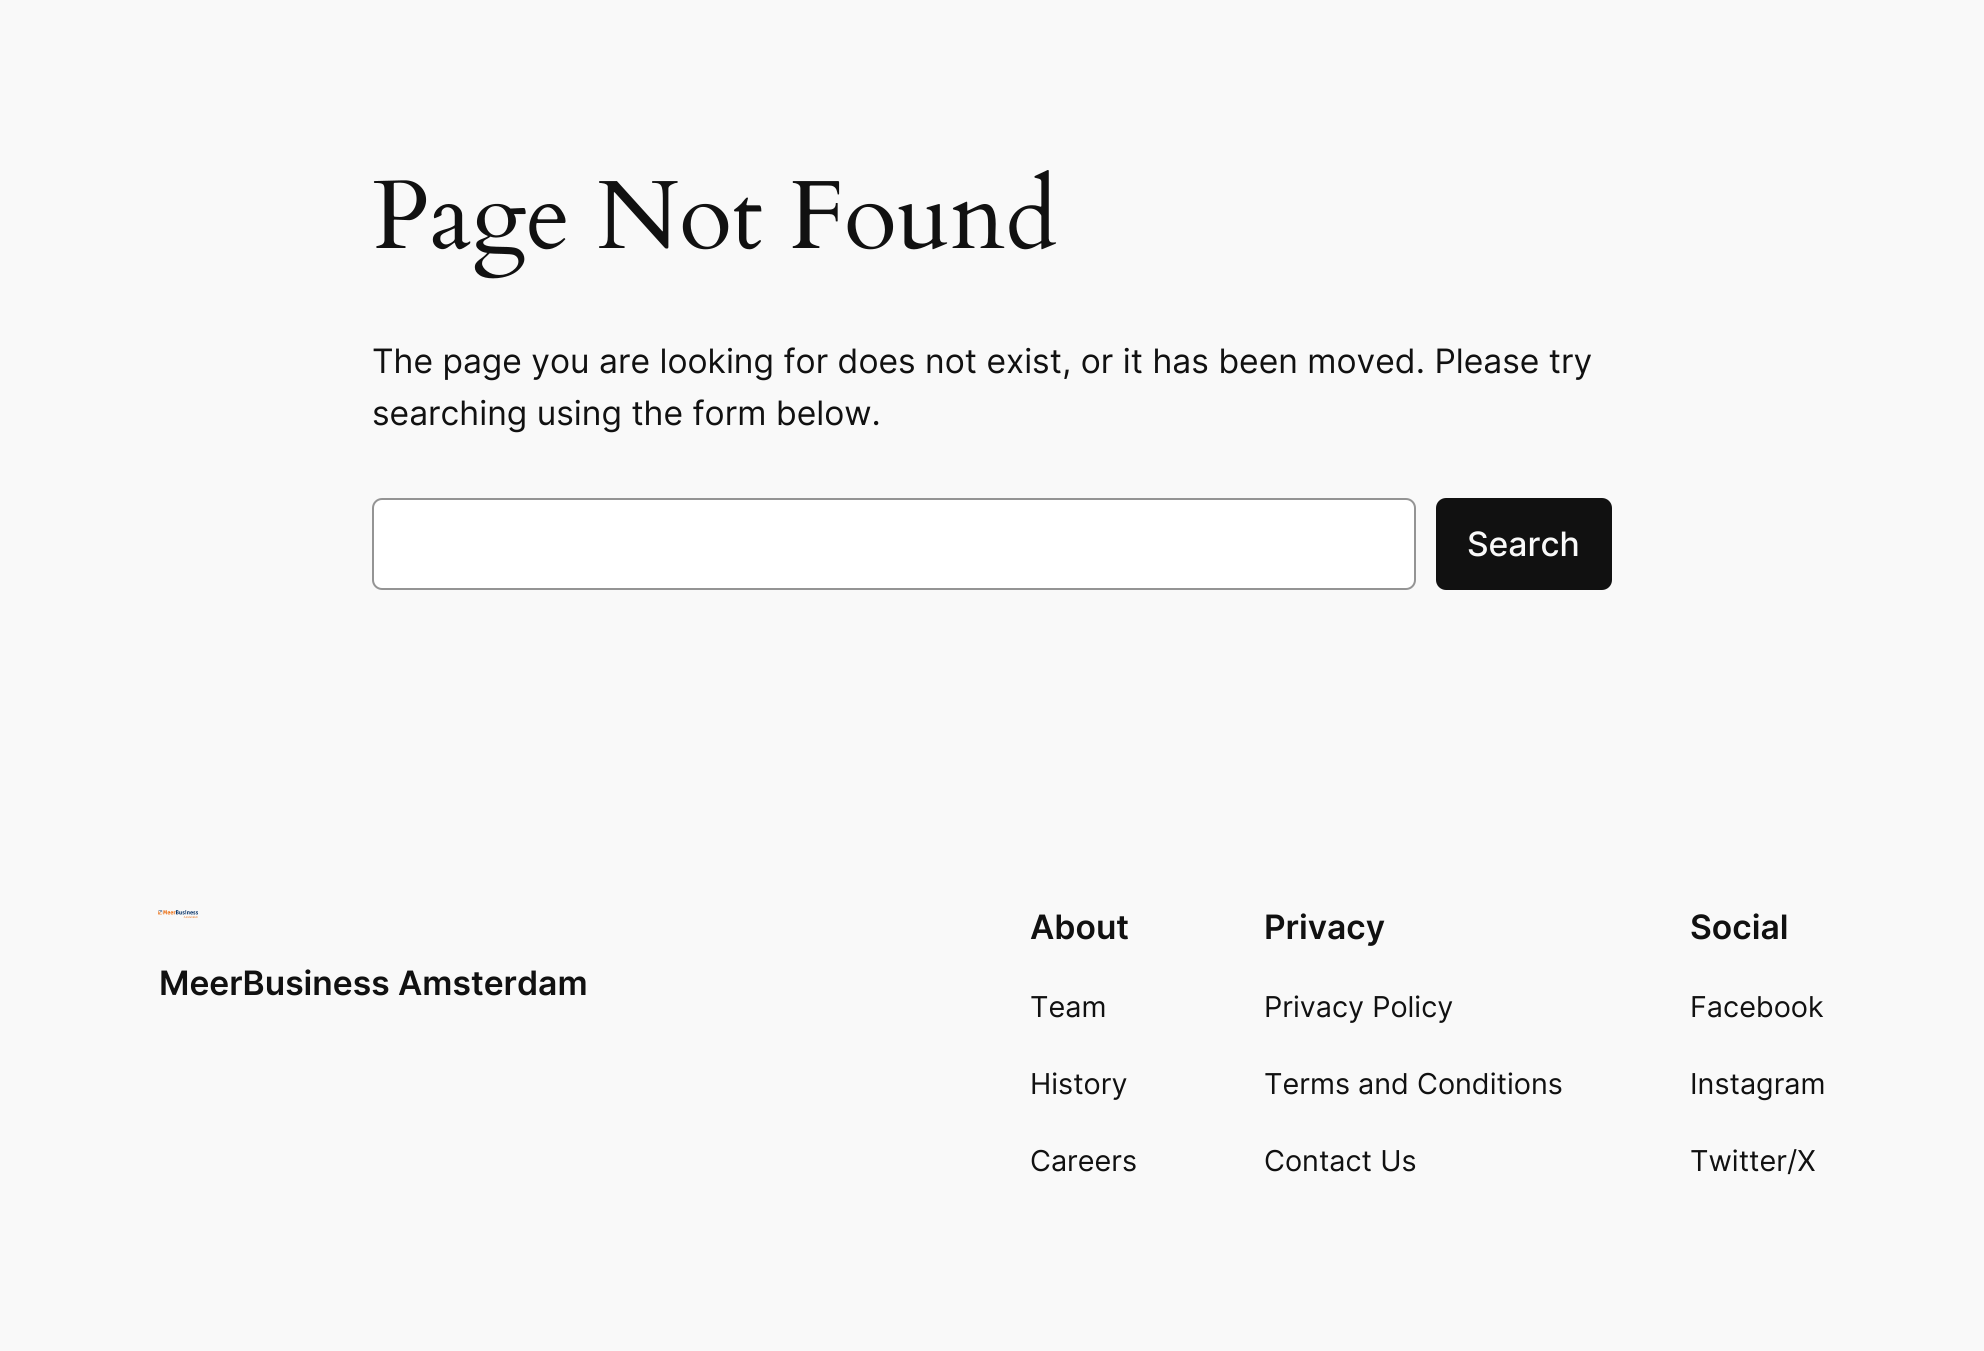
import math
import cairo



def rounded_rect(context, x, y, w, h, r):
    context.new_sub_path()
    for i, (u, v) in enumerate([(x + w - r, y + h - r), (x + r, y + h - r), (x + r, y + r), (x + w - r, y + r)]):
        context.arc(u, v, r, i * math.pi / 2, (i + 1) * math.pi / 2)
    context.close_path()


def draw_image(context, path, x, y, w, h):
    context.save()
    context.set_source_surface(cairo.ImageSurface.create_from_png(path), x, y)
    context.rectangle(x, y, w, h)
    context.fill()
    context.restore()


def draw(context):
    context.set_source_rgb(249 / 255, 249 / 255, 249 / 255)
    context.paint()
    draw_image(context, "images/1.png", 373, 170, 684, 109)
    context.set_source_rgb(1, 1, 1)
    rounded_rect(context, 373, 499, 1042, 90, 9)
    context.fill_preserve()
    context.set_source_rgb(148 / 255, 148 / 255, 148 / 255)
    context.stroke()
    context.set_source_rgb(17 / 255, 17 / 255, 17 / 255)
    rounded_rect(context, 1436, 498, 176, 92, 10)
    context.fill()
    draw_image(context, "images/2.png", 158, 910, 40, 8)
    context.select_font_face("Inter")
    context.set_font_size(33.6)
    context.move_to(372, 373)
    context.show_text("The page you are looking for does not exist, or it has been moved. Please try")
    context.move_to(372, 425)
    context.show_text("searching using the form below.")
    context.select_font_face("Inter Medium")
    context.set_source_rgb(249 / 255, 249 / 255, 249 / 255)
    context.move_to(1467, 556)
    context.show_text("Search")
    context.select_font_face("Inter SemiBold")
    context.set_source_rgb(17 / 255, 17 / 255, 17 / 255)
    context.move_to(159, 995)
    context.show_text("MeerBusiness Amsterdam")
    context.move_to(1030, 939)
    context.show_text("About")
    context.select_font_face("Inter")
    context.set_font_size(28.75)
    context.move_to(1030, 1017)
    context.show_text("Team")
    context.move_to(1030, 1094)
    context.show_text("History")
    context.move_to(1030, 1171)
    context.show_text("Careers")
    context.select_font_face("Inter SemiBold")
    context.set_font_size(33.6)
    context.move_to(1264, 939)
    context.show_text("Privacy")
    context.select_font_face("Inter")
    context.set_font_size(28.75)
    context.move_to(1264, 1017)
    context.show_text("Privacy Policy")
    context.move_to(1264, 1094)
    context.show_text("Terms and Conditions")
    context.move_to(1264, 1171)
    context.show_text("Contact Us")
    context.select_font_face("Inter SemiBold")
    context.set_font_size(33.6)
    context.move_to(1690, 939)
    context.show_text("Social")
    context.select_font_face("Inter")
    context.set_font_size(28.75)
    context.move_to(1690, 1017)
    context.show_text("Facebook")
    context.move_to(1690, 1094)
    context.show_text("Instagram")
    context.move_to(1690, 1171)
    context.show_text("Twitter/X")


surface = cairo.ImageSurface(cairo.Format.RGB24, 1984, 1351)
context = cairo.Context(surface)
options = cairo.FontOptions()
options.set_hint_metrics(cairo.HintMetrics.OFF)
options.set_hint_style(cairo.HintStyle.NONE)
context.set_font_options(options)
context.set_miter_limit(4)
draw(context)
surface.write_to_png("out.png")
